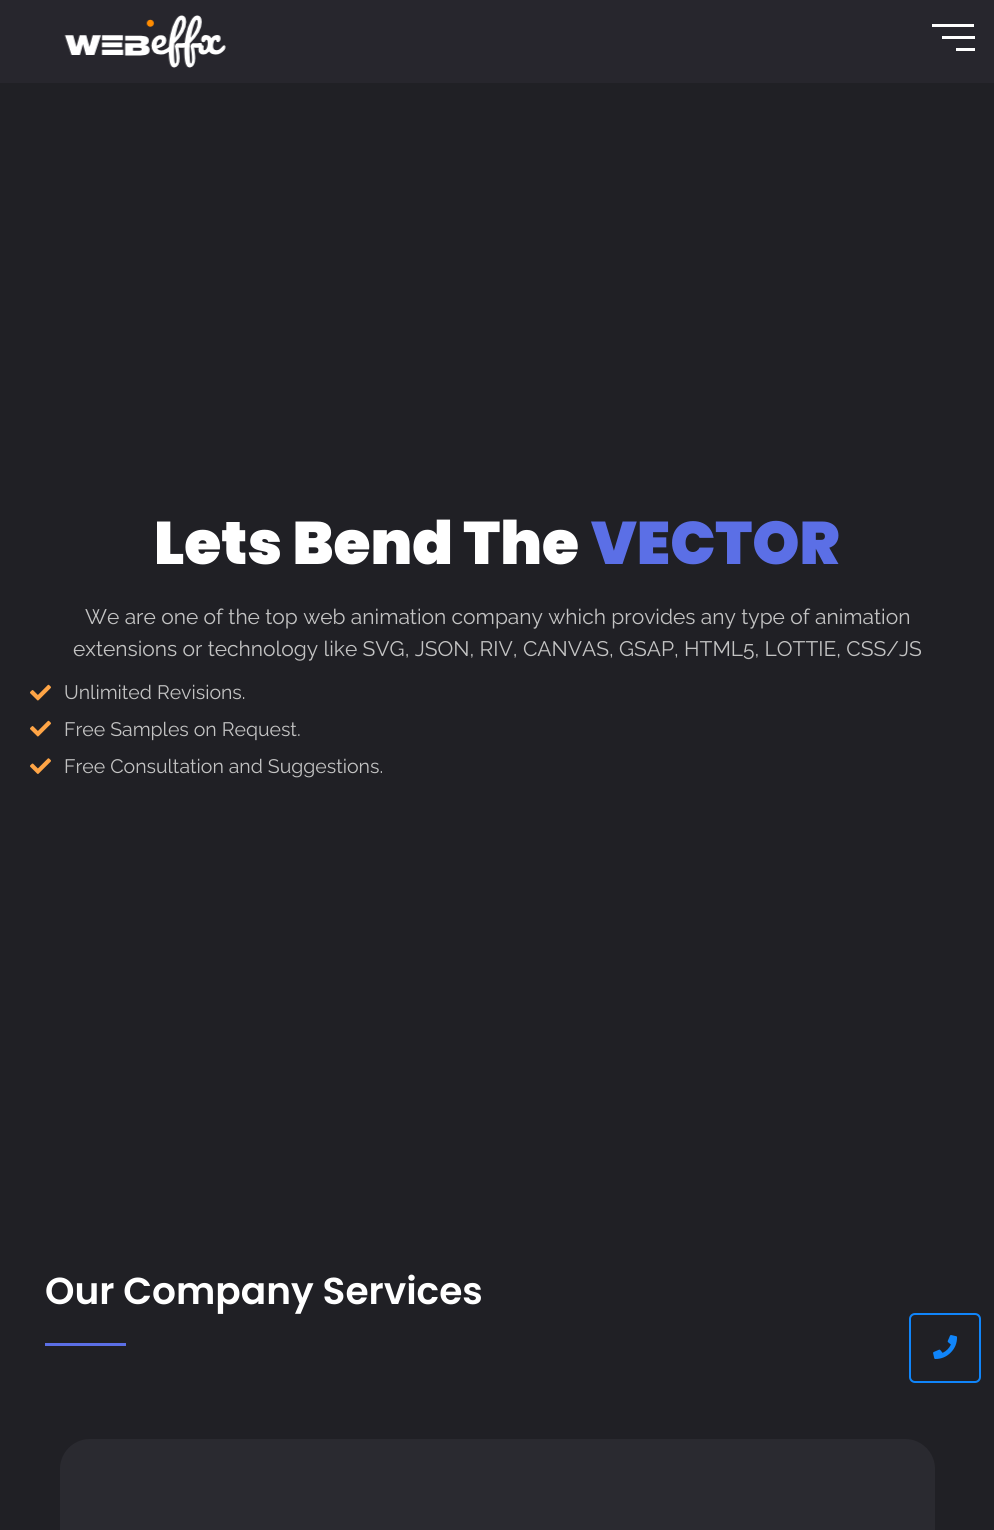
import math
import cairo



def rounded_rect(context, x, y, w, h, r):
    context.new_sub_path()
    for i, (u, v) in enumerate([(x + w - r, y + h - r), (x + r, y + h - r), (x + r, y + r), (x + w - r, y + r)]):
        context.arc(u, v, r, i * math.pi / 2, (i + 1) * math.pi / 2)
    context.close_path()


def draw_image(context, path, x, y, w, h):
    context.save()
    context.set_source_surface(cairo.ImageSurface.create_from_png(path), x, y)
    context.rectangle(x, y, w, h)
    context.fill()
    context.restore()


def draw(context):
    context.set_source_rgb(32 / 255, 32 / 255, 37 / 255)
    context.paint()
    context.set_source_rgb(39 / 255, 38 / 255, 45 / 255)
    context.rectangle(0, 0, 994, 83)
    context.fill()
    draw_image(context, "images/1.png", 64, 15, 162, 53)
    context.set_source_rgb(1, 1, 1)
    context.rectangle(932, 24, 42, 3)
    context.fill()
    context.rectangle(942, 36, 33, 3)
    context.fill()
    context.rectangle(956, 48, 19, 3)
    context.fill()
    draw_image(context, "images/2.png", 30, 684, 21, 17)
    draw_image(context, "images/2.png", 30, 720, 21, 17)
    draw_image(context, "images/3.png", 30, 758, 21, 16)
    context.set_source_rgb(91 / 255, 111 / 255, 230 / 255)
    context.rectangle(45, 1343, 81, 3)
    context.fill()
    context.set_source_rgb(42 / 255, 42 / 255, 48 / 255)
    rounded_rect(context, 60, 1439, 875, 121, 30)
    context.fill()
    rounded_rect(context, 910, 1314, 70, 68, 5)
    context.set_source_rgb(16 / 255, 133 / 255, 250 / 255)
    context.stroke()
    draw_image(context, "images/4.png", 933, 1335, 25, 24)
    context.select_font_face("Poppins Black")
    context.set_font_size(60)
    context.set_source_rgb(1, 1, 1)
    context.move_to(154, 564)
    context.show_text("Lets Bend The")
    context.set_source_rgb(91 / 255, 111 / 255, 230 / 255)
    context.move_to(591, 564)
    context.show_text("VECTOR")
    context.select_font_face("Raleway")
    context.set_font_size(21)
    context.set_source_rgb(195 / 255, 195 / 255, 195 / 255)
    context.move_to(85, 624)
    context.show_text("We are one of the top web animation company which provides any type of animation")
    context.move_to(73, 656)
    context.show_text("extensions or technology like SVG, JSON, RIV, CANVAS, GSAP, HTML5, LOTTIE, CSS/JS")
    context.set_font_size(19.5)
    context.move_to(64, 699)
    context.show_text("Unlimited Revisions.")
    context.move_to(64, 736)
    context.show_text("Free Samples on Request.")
    context.move_to(64, 773)
    context.show_text("Free Consultation and Suggestions.")
    context.select_font_face("Poppins SemiBold")
    context.set_font_size(37.5)
    context.set_source_rgb(1, 1, 1)
    context.move_to(45, 1304)
    context.show_text("Our Company Services")


surface = cairo.ImageSurface(cairo.Format.RGB24, 994, 1530)
context = cairo.Context(surface)
options = cairo.FontOptions()
options.set_hint_metrics(cairo.HintMetrics.OFF)
options.set_hint_style(cairo.HintStyle.NONE)
context.set_font_options(options)
context.set_miter_limit(4)
draw(context)
surface.write_to_png("out.png")
